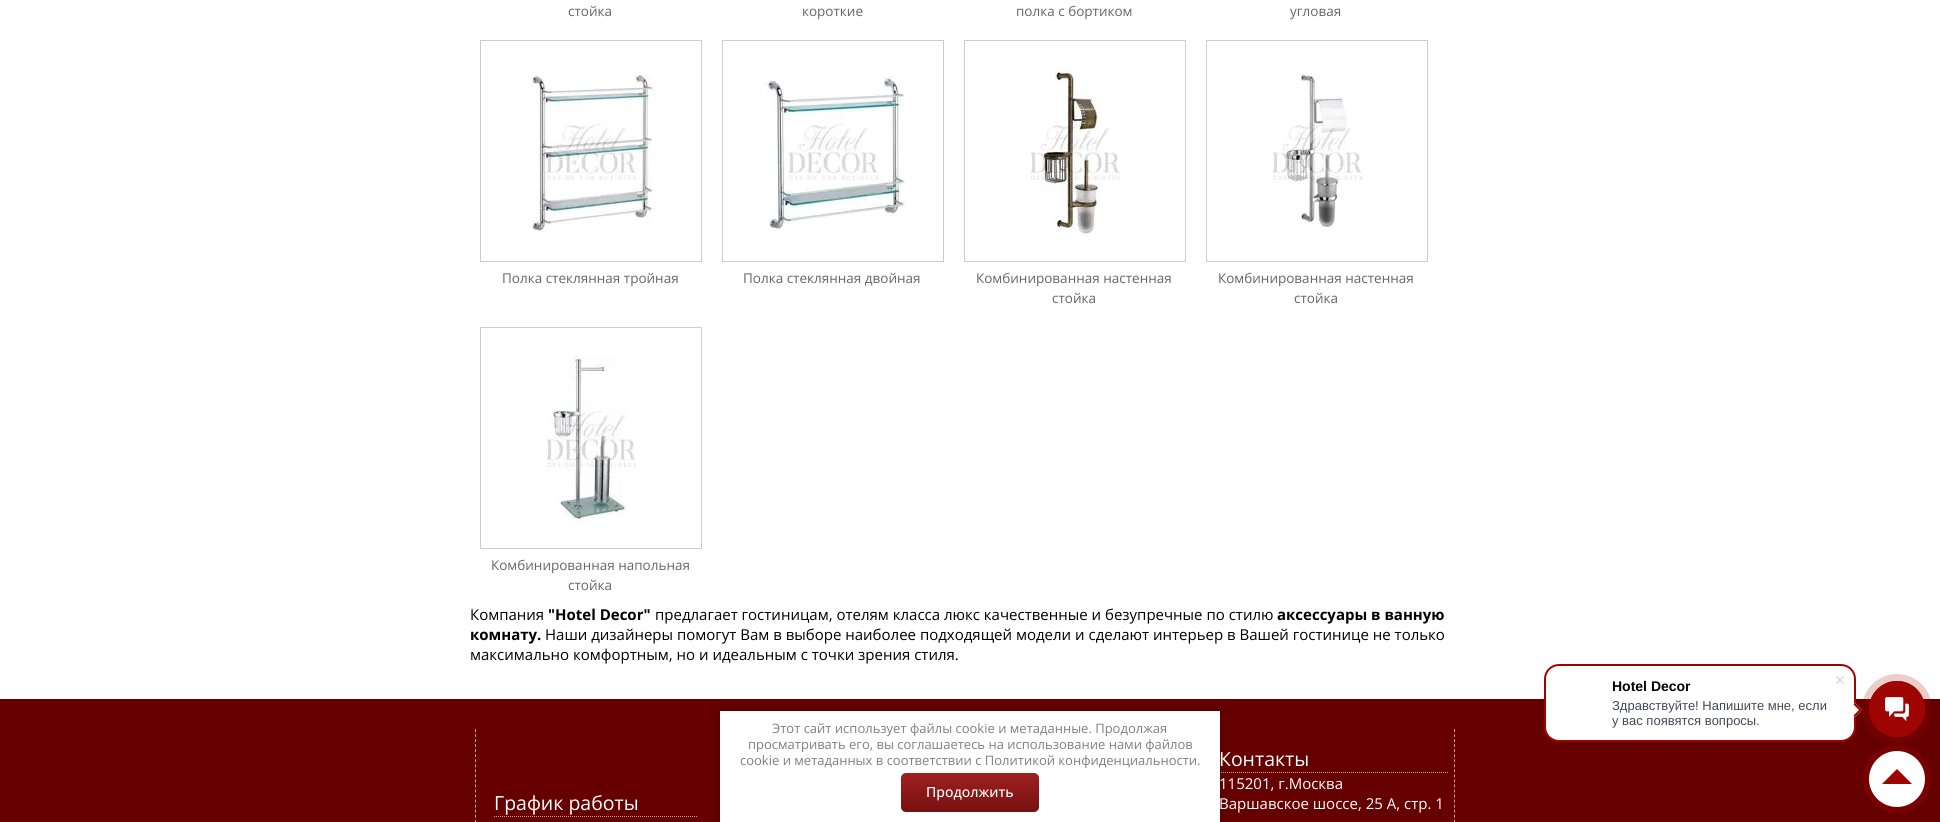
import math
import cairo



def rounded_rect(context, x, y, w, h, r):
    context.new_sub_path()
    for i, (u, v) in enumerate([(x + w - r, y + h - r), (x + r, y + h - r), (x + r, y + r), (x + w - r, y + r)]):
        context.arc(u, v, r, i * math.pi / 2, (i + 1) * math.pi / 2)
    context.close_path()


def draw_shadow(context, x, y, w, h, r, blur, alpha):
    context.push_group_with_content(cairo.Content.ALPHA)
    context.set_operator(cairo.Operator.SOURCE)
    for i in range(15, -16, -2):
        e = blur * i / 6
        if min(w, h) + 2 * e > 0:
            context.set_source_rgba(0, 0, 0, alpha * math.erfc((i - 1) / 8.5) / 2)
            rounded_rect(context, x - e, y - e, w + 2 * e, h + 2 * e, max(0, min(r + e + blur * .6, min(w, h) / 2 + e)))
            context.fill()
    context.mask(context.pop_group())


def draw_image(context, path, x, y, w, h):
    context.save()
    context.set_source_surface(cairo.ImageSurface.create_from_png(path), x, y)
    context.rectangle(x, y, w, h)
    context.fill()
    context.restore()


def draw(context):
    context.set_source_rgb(1, 1, 1)
    context.paint()
    context.rectangle(480.5, 40.5, 221, 221)
    context.set_source_rgb(204 / 255, 204 / 255, 204 / 255)
    context.set_line_width(1)
    context.stroke()
    draw_image(context, "images/1.png", 531, 72, 124, 160)
    context.rectangle(722.5, 40.5, 221, 221)
    context.stroke()
    draw_image(context, "images/2.png", 765, 76, 140, 156)
    context.rectangle(964.5, 40.5, 221, 221)
    context.stroke()
    draw_image(context, "images/3.png", 1031, 68, 90, 168)
    context.rectangle(1206.5, 40.5, 221, 221)
    context.stroke()
    draw_image(context, "images/4.png", 1273, 72, 90, 156)
    context.rectangle(480.5, 327.5, 221, 221)
    context.stroke()
    draw_image(context, "images/5.png", 547, 355, 90, 168)
    context.set_source_rgb(102 / 255, 0, 0)
    context.rectangle(0, 699, 1940, 123)
    context.fill()
    context.set_source_rgb(1, 1, 1)
    rounded_rect(context, 1545, 665, 310, 76, 14)
    context.fill_preserve()
    context.set_source_rgb(158 / 255, 5 / 255, 2 / 255)
    context.set_line_width(2)
    context.stroke()
    draw_image(context, "images/6.png", 1836, 676, 8, 8)
    context.set_source_rgb(1, 1, 1)
    context.new_path()
    context.move_to(1848, 710)
    context.line_to(1855, 703)
    context.line_to(1862, 710)
    context.line_to(1855, 717)
    context.close_path()
    context.fill()
    context.set_source_rgb(158 / 255, 5 / 255, 2 / 255)
    context.new_path()
    context.move_to(1853.5, 704.5)
    context.line_to(1855, 703)
    context.line_to(1862, 710)
    context.line_to(1860.5, 711.5)
    context.close_path()
    context.fill()
    context.new_path()
    context.move_to(1853.5, 715.5)
    context.line_to(1860.5, 708.5)
    context.line_to(1862, 710)
    context.line_to(1855, 717)
    context.close_path()
    context.fill()
    context.set_source_rgba(158 / 255, 5 / 255, 2 / 255, 0.2)
    context.arc(1897, 709, 35, 0, 2 * math.pi)
    context.fill()
    context.arc(1897, 709, 27.6, 0, 2 * math.pi)
    context.set_source_rgb(158 / 255, 5 / 255, 2 / 255)
    context.set_line_width(0.8)
    context.stroke()
    context.arc(1897, 709, 28, 0, 2 * math.pi)
    context.fill()
    draw_image(context, "images/7.png", 1885, 697, 24, 24)
    context.new_path()
    context.move_to(1219, 772.5)
    context.line_to(1449, 772.5)
    context.set_source_rgb(204 / 255, 153 / 255, 153 / 255)
    context.set_line_width(1)
    context.set_dash([1, 1])
    context.stroke()
    context.set_source_rgb(0, 0, 0)
    draw_shadow(context, 720, 712, 500, 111, 0, 5, 0.25)
    context.set_source_rgb(1, 1, 1)
    context.rectangle(720, 711, 500, 111)
    context.fill()
    gradient = cairo.LinearGradient(970, 773, 970, 812)
    gradient.add_color_stop_rgba(0, 159 / 255, 32 / 255, 32 / 255, 1)
    gradient.add_color_stop_rgba(1, 118 / 255, 17 / 255, 17 / 255, 1)
    context.set_source(gradient)
    rounded_rect(context, 901, 773, 138, 39, 5)
    context.fill()
    context.arc(1897, 779, 31, 0, 2 * math.pi)
    context.set_source_rgb(119 / 255, 2 / 255, 1 / 255)
    context.set_line_width(6)
    context.set_dash([])
    context.stroke()
    context.set_source_rgb(1, 1, 1)
    context.arc(1897, 779, 28, 0, 2 * math.pi)
    context.fill()
    context.set_source_rgb(158 / 255, 5 / 255, 2 / 255)
    context.new_path()
    context.move_to(1912, 784)
    context.line_to(1882, 784)
    context.line_to(1897, 769)
    context.close_path()
    context.fill()
    context.new_path()
    context.move_to(475.5, 729)
    context.line_to(475.5, 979)
    context.set_source_rgb(204 / 255, 153 / 255, 153 / 255)
    context.set_line_width(1)
    context.set_dash([3, 2.04])
    context.stroke()
    context.new_path()
    context.move_to(494, 816.5)
    context.line_to(698, 816.5)
    context.set_dash([1, 1])
    context.stroke()
    context.new_path()
    context.move_to(1454.5, 729)
    context.line_to(1454.5, 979)
    context.set_dash([3, 2.04])
    context.stroke()
    context.select_font_face("Open Sans")
    context.set_font_size(13.5)
    context.set_source_rgb(102 / 255, 102 / 255, 102 / 255)
    context.move_to(568, 16)
    context.show_text("стойка")
    context.move_to(802, 16)
    context.show_text("короткие")
    context.move_to(1016, 16)
    context.show_text("полка с бортиком")
    context.move_to(1290, 16)
    context.show_text("угловая")
    context.move_to(502, 283)
    context.show_text("Полка стеклянная тройная")
    context.move_to(743, 283)
    context.show_text("Полка стеклянная двойная")
    context.move_to(976, 283)
    context.show_text("Комбинированная настенная")
    context.move_to(1052, 303)
    context.show_text("стойка")
    context.move_to(1218, 283)
    context.show_text("Комбинированная настенная")
    context.move_to(1294, 303)
    context.show_text("стойка")
    context.move_to(491, 570)
    context.show_text("Комбинированная напольная")
    context.move_to(568, 590)
    context.show_text("стойка")
    context.set_font_size(15)
    context.set_source_rgb(0, 0, 0)
    context.move_to(470, 620)
    context.show_text("Компания")
    context.select_font_face("Open Sans", cairo.FontSlant.NORMAL, cairo.FontWeight.BOLD)
    context.move_to(548, 620)
    context.show_text("\"Ноtel Decor\"")
    context.select_font_face("Open Sans")
    context.move_to(655, 620)
    context.show_text("предлагает гостиницам, отелям класса люкс качественные и безупречные по стилю")
    context.select_font_face("Open Sans", cairo.FontSlant.NORMAL, cairo.FontWeight.BOLD)
    context.move_to(1277, 620)
    context.show_text("аксессуары в ванную")
    context.move_to(470, 640)
    context.show_text("комнату.")
    context.select_font_face("Open Sans")
    context.move_to(545, 640)
    context.show_text("Наши дизайнеры помогут Вам в выборе наиболее подходящей модели и сделают интерьер в Вашей гостинице не только")
    context.move_to(470, 660)
    context.show_text("максимально комфортным, но и идеальным с точки зрения стиля.")
    context.select_font_face("Liberation Sans", cairo.FontSlant.NORMAL, cairo.FontWeight.BOLD)
    context.set_font_size(14)
    context.move_to(1612, 691)
    context.show_text("Hotel Decor")
    context.select_font_face("Liberation Sans")
    context.set_font_size(13)
    context.set_source_rgb(66 / 255, 73 / 255, 86 / 255)
    context.move_to(1612, 710)
    context.show_text("Здравствуйте! Напишите мне, если")
    context.move_to(1612, 725)
    context.show_text("у вас появятся вопросы.")
    context.select_font_face("Open Sans")
    context.set_source_rgb(128 / 255, 128 / 255, 128 / 255)
    context.move_to(772, 733)
    context.show_text("Этот сайт использует файлы cookie и метаданные. Продолжая")
    context.move_to(748, 749)
    context.show_text("просматривать его, вы соглашаетесь на использование нами файлов")
    context.move_to(740, 765)
    context.show_text("cookie и метаданных в соответствии с Политикой конфиденциальности.")
    context.select_font_face("Open Sans Medium")
    context.set_font_size(14)
    context.set_source_rgb(1, 1, 1)
    context.move_to(926, 797)
    context.show_text("Продолжить")
    context.select_font_face("Open Sans")
    context.set_font_size(19.5)
    context.move_to(494, 810)
    context.show_text("График работы")
    context.move_to(1219, 766)
    context.show_text("Контакты")
    context.set_font_size(15)
    context.move_to(1219, 789)
    context.show_text("115201, г.Москва")
    context.move_to(1219, 809)
    context.show_text("Варшавское шоссе, 25 А, стр. 1")


surface = cairo.ImageSurface(cairo.Format.RGB24, 1940, 822)
context = cairo.Context(surface)
options = cairo.FontOptions()
options.set_hint_metrics(cairo.HintMetrics.OFF)
options.set_hint_style(cairo.HintStyle.NONE)
context.set_font_options(options)
context.set_miter_limit(4)
draw(context)
surface.write_to_png("out.png")
